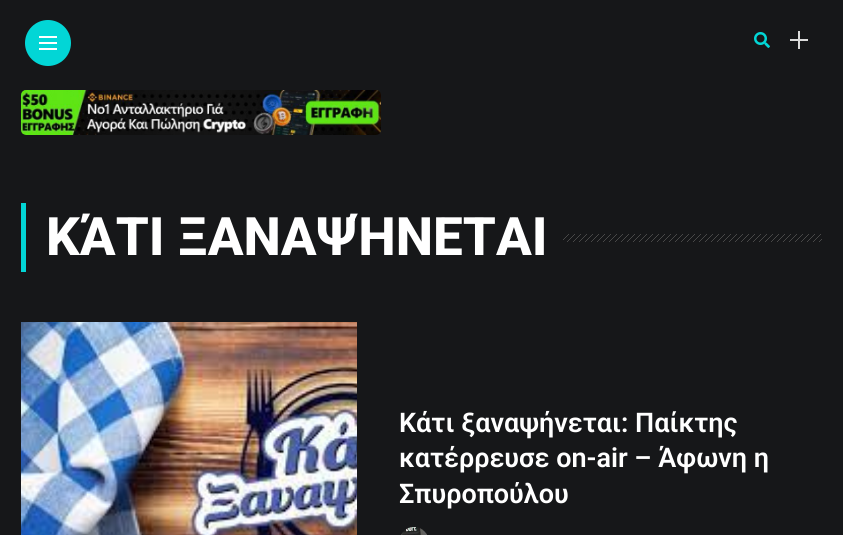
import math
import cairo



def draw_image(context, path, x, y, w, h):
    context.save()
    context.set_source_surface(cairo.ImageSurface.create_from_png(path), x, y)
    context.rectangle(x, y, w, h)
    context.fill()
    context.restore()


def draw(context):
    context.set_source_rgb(22 / 255, 23 / 255, 25 / 255)
    context.paint()
    context.set_source_rgb(2 / 255, 214 / 255, 214 / 255)
    context.arc(48, 43, 23, 0, 2 * math.pi)
    context.fill()
    context.set_source_rgb(1, 1, 1)
    context.rectangle(39, 36, 18, 2)
    context.fill()
    context.rectangle(39, 42, 18, 2)
    context.fill()
    context.rectangle(39, 48, 18, 2)
    context.fill()
    draw_image(context, "images/1.png", 754, 32, 16, 16)
    context.set_source_rgb(219 / 255, 219 / 255, 219 / 255)
    context.rectangle(790, 39, 18, 2)
    context.fill()
    context.rectangle(798, 31, 2, 18)
    context.fill()
    draw_image(context, "images/2.png", 21, 90, 360, 45)
    context.set_source_rgb(2 / 255, 214 / 255, 214 / 255)
    context.rectangle(21, 203, 5, 69)
    context.fill()
    draw_image(context, "images/3.png", 563, 234, 259, 8)
    draw_image(context, "images/4.png", 21, 322, 336, 213)
    draw_image(context, "images/5.png", 401, 527, 26, 8)
    context.select_font_face("Roboto ExtraBold")
    context.set_font_size(53)
    context.set_source_rgb(1, 1, 1)
    context.move_to(46, 255)
    context.show_text("ΚΆΤΙ ΞΑΝΑΨΉΝΕΤΑΙ")
    context.select_font_face("Roboto SemiBold")
    context.set_font_size(27)
    context.move_to(399, 432)
    context.show_text("Κάτι ξαναψήνεται: Παίκτης")
    context.move_to(399, 467)
    context.show_text("κατέρρευσε on-air – Άφωνη η")
    context.move_to(399, 503)
    context.show_text("Σπυροπούλου")


surface = cairo.ImageSurface(cairo.Format.RGB24, 843, 535)
context = cairo.Context(surface)
options = cairo.FontOptions()
options.set_hint_metrics(cairo.HintMetrics.OFF)
options.set_hint_style(cairo.HintStyle.NONE)
context.set_font_options(options)
context.set_miter_limit(4)
draw(context)
surface.write_to_png("out.png")
